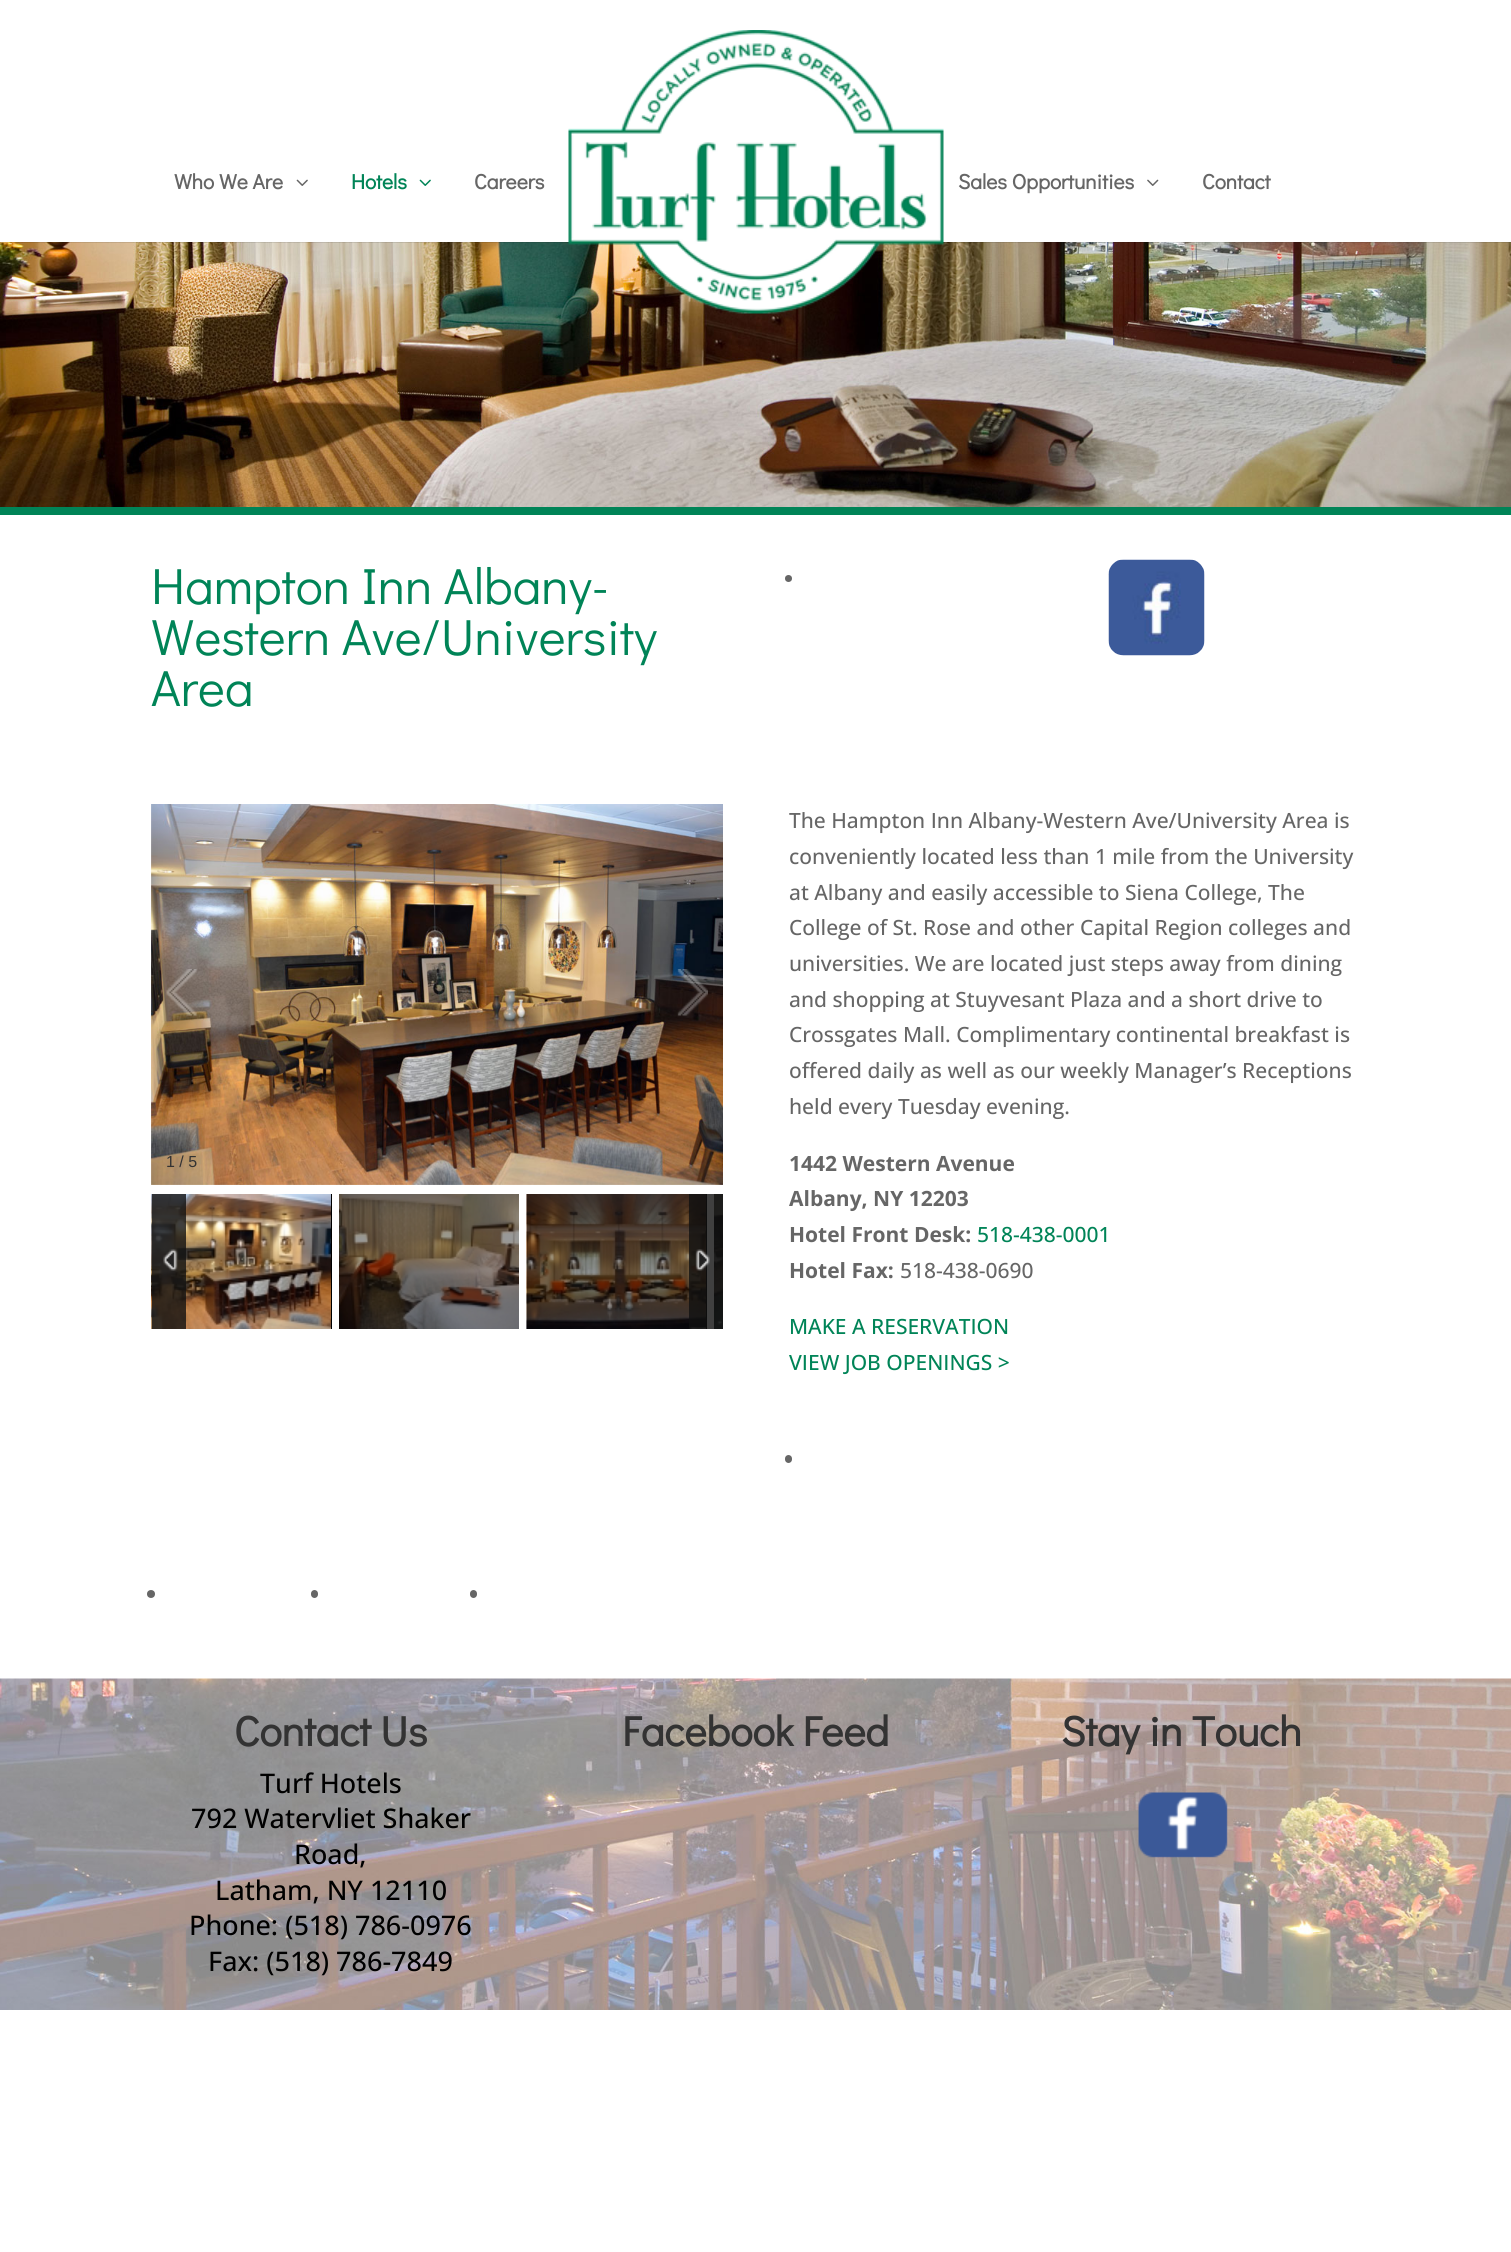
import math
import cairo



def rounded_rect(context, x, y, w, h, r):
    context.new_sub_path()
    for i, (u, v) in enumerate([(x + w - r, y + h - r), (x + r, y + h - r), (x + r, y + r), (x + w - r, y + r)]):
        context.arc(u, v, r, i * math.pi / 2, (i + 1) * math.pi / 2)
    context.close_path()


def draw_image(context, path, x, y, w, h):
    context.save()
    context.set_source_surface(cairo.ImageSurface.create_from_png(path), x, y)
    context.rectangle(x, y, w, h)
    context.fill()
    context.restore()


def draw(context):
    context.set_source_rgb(1, 1, 1)
    context.paint()
    draw_image(context, "images/5.png", 0, 242, 1511, 265)
    context.set_source_rgba(0, 0, 0, 0.1)
    context.rectangle(0, 242, 1511, 1)
    context.fill()
    draw_image(context, "images/1.png", 568, 30, 376, 284)
    draw_image(context, "images/2.png", 296, 179, 12, 7)
    draw_image(context, "images/3.png", 419, 179, 12, 7)
    draw_image(context, "images/4.png", 1147, 179, 12, 7)
    context.set_source_rgb(0, 132 / 255, 87 / 255)
    context.rectangle(0, 507, 1511, 8)
    context.fill()
    context.set_source_rgb(102 / 255, 102 / 255, 102 / 255)
    context.arc(788.5, 578.5, 3.5, 0, 2 * math.pi)
    context.fill()
    draw_image(context, "images/6.png", 1108, 559, 97, 97)
    draw_image(context, "images/7.png", 151, 804, 572, 381)
    draw_image(context, "images/8.png", 166, 969, 31, 47)
    draw_image(context, "images/9.png", 677, 969, 31, 47)
    context.set_source_rgb(0, 0, 0)
    context.rectangle(331, 1194, 1, 135)
    context.fill()
    draw_image(context, "images/10.png", 151, 1194, 180, 135)
    context.rectangle(339, 1194, 180, 135)
    context.fill()
    draw_image(context, "images/11.png", 339, 1194, 180, 135)
    context.rectangle(527, 1194, 180, 135)
    context.fill()
    draw_image(context, "images/12.png", 526, 1194, 180, 135)
    context.rectangle(714, 1194, 9, 135)
    context.fill()
    draw_image(context, "images/13.png", 714, 1194, 9, 135)
    context.set_source_rgba(17 / 255, 17 / 255, 17 / 255, 0.8)
    context.rectangle(152, 1194, 34, 135)
    context.fill()
    draw_image(context, "images/14.png", 163, 1249, 15, 22)
    context.rectangle(689, 1194, 34, 135)
    context.fill()
    draw_image(context, "images/15.png", 695, 1249, 15, 22)
    context.set_source_rgb(102 / 255, 102 / 255, 102 / 255)
    rounded_rect(context, 785, 1455, 7, 8, 3.5)
    context.fill()
    context.arc(151, 1594, 4, 0, 2 * math.pi)
    context.fill()
    rounded_rect(context, 311, 1590, 7, 8, 3.5)
    context.fill()
    rounded_rect(context, 470, 1590, 7, 8, 3.5)
    context.fill()
    draw_image(context, "images/16.png", 0, 1678, 1511, 332)
    draw_image(context, "images/17.png", 1138, 1792, 90, 66)
    context.select_font_face("Didact Gothic", cairo.FontSlant.NORMAL, cairo.FontWeight.BOLD)
    context.set_font_size(21)
    context.move_to(174, 189)
    context.show_text("Who We Are")
    context.set_source_rgb(0, 132 / 255, 87 / 255)
    context.move_to(351, 189)
    context.show_text("Hotels")
    context.set_source_rgb(102 / 255, 102 / 255, 102 / 255)
    context.move_to(474, 189)
    context.show_text("Careers")
    context.move_to(958, 189)
    context.show_text("Sales Opportunities")
    context.move_to(1202, 189)
    context.show_text("Contact")
    context.select_font_face("Didact Gothic")
    context.set_font_size(51)
    context.set_source_rgb(0, 132 / 255, 87 / 255)
    context.move_to(151, 604)
    context.show_text("Hampton Inn Albany-")
    context.move_to(151, 655)
    context.show_text("Western Ave/University")
    context.move_to(151, 706)
    context.show_text("Area")
    context.select_font_face("Liberation Sans")
    context.set_font_size(16)
    context.set_source_rgb(51 / 255, 51 / 255, 51 / 255)
    context.move_to(166, 1167)
    context.show_text("1 / 5")
    context.select_font_face("Open Sans Medium")
    context.set_font_size(21)
    context.set_source_rgb(102 / 255, 102 / 255, 102 / 255)
    context.move_to(789, 828)
    context.show_text("The Hampton Inn Albany-Western Ave/University Area is")
    context.move_to(789, 864)
    context.show_text("conveniently located less than 1 mile from the University")
    context.move_to(789, 900)
    context.show_text("at Albany and easily accessible to Siena College, The")
    context.move_to(789, 935)
    context.show_text("College of St. Rose and other Capital Region colleges and")
    context.move_to(789, 971)
    context.show_text("universities. We are located just steps away from dining")
    context.move_to(789, 1007)
    context.show_text("and shopping at Stuyvesant Plaza and a short drive to")
    context.move_to(789, 1042)
    context.show_text("Crossgates Mall. Complimentary continental breakfast is")
    context.move_to(789, 1078)
    context.show_text("offered daily as well as our weekly Manager’s Receptions")
    context.move_to(789, 1114)
    context.show_text("held every Tuesday evening.")
    context.select_font_face("Open Sans", cairo.FontSlant.NORMAL, cairo.FontWeight.BOLD)
    context.move_to(789, 1171)
    context.show_text("1442 Western Avenue")
    context.move_to(789, 1206)
    context.show_text("Albany, NY 12203")
    context.move_to(789, 1242)
    context.show_text("Hotel Front Desk:")
    context.select_font_face("Open Sans Medium")
    context.set_source_rgb(0, 132 / 255, 87 / 255)
    context.move_to(977, 1242)
    context.show_text("518-438-0001")
    context.select_font_face("Open Sans", cairo.FontSlant.NORMAL, cairo.FontWeight.BOLD)
    context.set_source_rgb(102 / 255, 102 / 255, 102 / 255)
    context.move_to(789, 1278)
    context.show_text("Hotel Fax:")
    context.select_font_face("Open Sans Medium")
    context.move_to(900, 1278)
    context.show_text("518-438-0690")
    context.set_source_rgb(0, 132 / 255, 87 / 255)
    context.move_to(789, 1334)
    context.show_text("MAKE A RESERVATION")
    context.move_to(789, 1370)
    context.show_text("VIEW JOB OPENINGS >")
    context.select_font_face("Didact Gothic", cairo.FontSlant.NORMAL, cairo.FontWeight.BOLD)
    context.set_font_size(42)
    context.set_source_rgb(51 / 255, 51 / 255, 51 / 255)
    context.move_to(234, 1746)
    context.show_text("Contact Us")
    context.select_font_face("Open Sans Medium")
    context.set_font_size(27)
    context.set_source_rgb(0, 0, 0)
    context.move_to(260, 1793)
    context.show_text("Turf Hotels")
    context.move_to(191, 1828)
    context.show_text("792 Watervliet Shaker")
    context.move_to(294, 1864)
    context.show_text("Road,")
    context.move_to(215, 1900)
    context.show_text("Latham, NY 12110")
    context.move_to(189, 1935)
    context.show_text("Phone: (518) 786-0976")
    context.move_to(208, 1971)
    context.show_text("Fax: (518) 786-7849")
    context.select_font_face("Didact Gothic", cairo.FontSlant.NORMAL, cairo.FontWeight.BOLD)
    context.set_font_size(42)
    context.set_source_rgb(51 / 255, 51 / 255, 51 / 255)
    context.move_to(622, 1746)
    context.show_text("Facebook Feed")
    context.move_to(1061, 1746)
    context.show_text("Stay in Touch")


surface = cairo.ImageSurface(cairo.Format.RGB24, 1511, 2252)
context = cairo.Context(surface)
options = cairo.FontOptions()
options.set_hint_metrics(cairo.HintMetrics.OFF)
options.set_hint_style(cairo.HintStyle.NONE)
context.set_font_options(options)
context.set_miter_limit(4)
draw(context)
surface.write_to_png("out.png")
